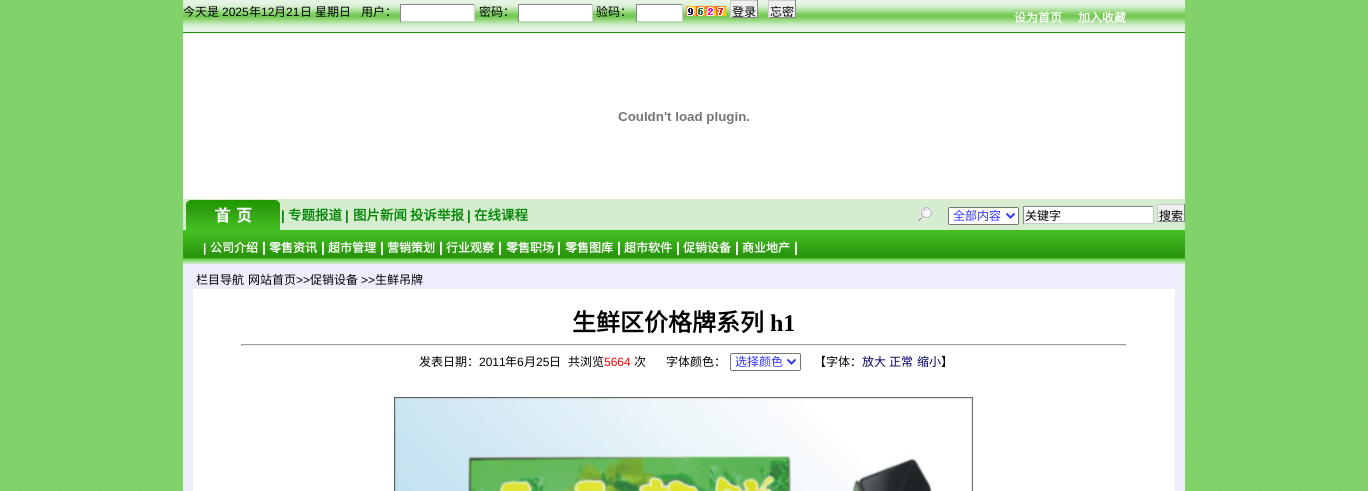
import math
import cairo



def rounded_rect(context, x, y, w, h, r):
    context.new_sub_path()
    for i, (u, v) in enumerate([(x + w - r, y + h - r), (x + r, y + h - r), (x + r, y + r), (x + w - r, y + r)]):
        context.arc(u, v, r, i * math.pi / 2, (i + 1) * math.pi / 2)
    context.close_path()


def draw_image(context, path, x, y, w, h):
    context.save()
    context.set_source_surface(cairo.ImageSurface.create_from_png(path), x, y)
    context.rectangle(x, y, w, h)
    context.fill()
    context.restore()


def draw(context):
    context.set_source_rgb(1, 1, 1)
    context.paint()
    draw_image(context, "images/1.png", 0, 0, 1368, 491)
    draw_image(context, "images/2.png", 183, 0, 1002, 34)
    context.set_source_rgb(1, 1, 1)
    context.rectangle(401, 5, 73, 16)
    context.fill()
    context.set_source_rgb(136 / 255, 136 / 255, 136 / 255)
    context.rectangle(400, 4, 75, 1)
    context.fill()
    context.set_source_rgb(204 / 255, 204 / 255, 204 / 255)
    context.rectangle(474, 4, 1, 18)
    context.fill()
    context.rectangle(400, 21, 75, 1)
    context.fill()
    context.set_source_rgb(136 / 255, 136 / 255, 136 / 255)
    context.rectangle(400, 4, 1, 18)
    context.fill()
    context.set_source_rgb(1, 1, 1)
    context.rectangle(519, 5, 73, 16)
    context.fill()
    context.set_source_rgb(136 / 255, 136 / 255, 136 / 255)
    context.rectangle(518, 4, 75, 1)
    context.fill()
    context.set_source_rgb(204 / 255, 204 / 255, 204 / 255)
    context.rectangle(592, 4, 1, 18)
    context.fill()
    context.rectangle(518, 21, 75, 1)
    context.fill()
    context.set_source_rgb(136 / 255, 136 / 255, 136 / 255)
    context.rectangle(518, 4, 1, 18)
    context.fill()
    context.set_source_rgb(1, 1, 1)
    context.rectangle(637, 5, 45, 16)
    context.fill()
    context.set_source_rgb(136 / 255, 136 / 255, 136 / 255)
    context.rectangle(636, 4, 47, 1)
    context.fill()
    context.set_source_rgb(204 / 255, 204 / 255, 204 / 255)
    context.rectangle(682, 4, 1, 18)
    context.fill()
    context.rectangle(636, 21, 47, 1)
    context.fill()
    context.set_source_rgb(136 / 255, 136 / 255, 136 / 255)
    context.rectangle(636, 4, 1, 18)
    context.fill()
    draw_image(context, "images/3.png", 686, 6, 40, 10)
    context.set_source_rgb(239 / 255, 239 / 255, 239 / 255)
    context.rectangle(731, 1, 26, 16)
    context.fill()
    context.set_source_rgb(204 / 255, 204 / 255, 204 / 255)
    context.rectangle(730, 0, 28, 1)
    context.fill()
    context.set_source_rgb(136 / 255, 136 / 255, 136 / 255)
    context.rectangle(757, 0, 1, 18)
    context.fill()
    context.rectangle(730, 17, 28, 1)
    context.fill()
    context.set_source_rgb(204 / 255, 204 / 255, 204 / 255)
    context.rectangle(730, 0, 1, 18)
    context.fill()
    context.set_source_rgb(239 / 255, 239 / 255, 239 / 255)
    context.rectangle(769, 1, 26, 16)
    context.fill()
    context.set_source_rgb(204 / 255, 204 / 255, 204 / 255)
    context.rectangle(768, 0, 28, 1)
    context.fill()
    context.set_source_rgb(136 / 255, 136 / 255, 136 / 255)
    context.rectangle(795, 0, 1, 18)
    context.fill()
    context.rectangle(768, 17, 28, 1)
    context.fill()
    context.set_source_rgb(204 / 255, 204 / 255, 204 / 255)
    context.rectangle(768, 0, 1, 18)
    context.fill()
    context.set_source_rgb(1, 1, 1)
    context.rectangle(183, 34, 1002, 165)
    context.fill()
    draw_image(context, "images/4.png", 618, 112, 131, 12)
    draw_image(context, "images/5.png", 183, 199, 98, 31)
    context.set_source_rgb(213 / 255, 237 / 255, 206 / 255)
    context.rectangle(281, 199, 904, 31)
    context.fill()
    draw_image(context, "images/6.png", 917, 207, 15, 15)
    context.set_source_rgb(1, 1, 1)
    rounded_rect(context, 948.5, 207.5, 70, 17, 1.5)
    context.fill_preserve()
    context.set_source_rgb(118 / 255, 118 / 255, 118 / 255)
    context.set_line_width(1)
    context.stroke()
    context.new_path()
    context.move_to(1006.5, 213.5)
    context.line_to(1010.5, 217.5)
    context.line_to(1014.5, 213.5)
    context.set_source_rgb(51 / 255, 51 / 255, 1)
    context.set_line_width(2)
    context.stroke()
    context.set_source_rgb(1, 1, 1)
    context.rectangle(1024, 207, 129, 16)
    context.fill()
    context.set_source_rgb(136 / 255, 136 / 255, 136 / 255)
    context.rectangle(1023, 206, 131, 1)
    context.fill()
    context.set_source_rgb(204 / 255, 204 / 255, 204 / 255)
    context.rectangle(1153, 206, 1, 18)
    context.fill()
    context.rectangle(1023, 223, 131, 1)
    context.fill()
    context.set_source_rgb(136 / 255, 136 / 255, 136 / 255)
    context.rectangle(1023, 206, 1, 18)
    context.fill()
    context.set_source_rgb(239 / 255, 239 / 255, 239 / 255)
    context.rectangle(1158, 205, 26, 16)
    context.fill()
    context.set_source_rgb(204 / 255, 204 / 255, 204 / 255)
    context.rectangle(1157, 204, 28, 1)
    context.fill()
    context.set_source_rgb(136 / 255, 136 / 255, 136 / 255)
    context.rectangle(1184, 204, 1, 18)
    context.fill()
    context.rectangle(1157, 221, 28, 1)
    context.fill()
    context.set_source_rgb(204 / 255, 204 / 255, 204 / 255)
    context.rectangle(1157, 204, 1, 18)
    context.fill()
    draw_image(context, "images/7.png", 183, 230, 1002, 34)
    context.set_source_rgb(237 / 255, 237 / 255, 252 / 255)
    context.rectangle(183, 264, 1002, 227)
    context.fill()
    context.set_source_rgb(1, 1, 1)
    context.rectangle(193, 289, 982, 202)
    context.fill()
    context.set_source_rgb(159 / 255, 159 / 255, 159 / 255)
    context.rectangle(241, 344, 886, 1)
    context.fill()
    context.set_source_rgb(238 / 255, 238 / 255, 238 / 255)
    context.rectangle(1126, 344, 1, 2)
    context.fill()
    context.rectangle(241, 345, 886, 1)
    context.fill()
    context.set_source_rgb(159 / 255, 159 / 255, 159 / 255)
    context.rectangle(241, 344, 1, 2)
    context.fill()
    rounded_rect(context, 730.5, 353.5, 70, 17, 1.5)
    context.set_source_rgb(118 / 255, 118 / 255, 118 / 255)
    context.set_line_width(1)
    context.stroke()
    context.new_path()
    context.move_to(787.5, 359.5)
    context.line_to(791.5, 363.5)
    context.line_to(795.5, 359.5)
    context.set_source_rgb(51 / 255, 51 / 255, 1)
    context.set_line_width(2)
    context.stroke()
    draw_image(context, "images/8.png", 394, 397, 579, 94)
    context.select_font_face("Noto Sans CJK SC")
    context.set_font_size(12)
    context.set_source_rgb(0, 0, 0)
    context.move_to(183, 16)
    context.show_text("今天是")
    context.select_font_face("Liberation Sans")
    context.move_to(222, 16)
    context.show_text("2025")
    context.select_font_face("Noto Sans CJK SC")
    context.move_to(249, 16)
    context.show_text("年")
    context.select_font_face("Liberation Sans")
    context.move_to(261, 16)
    context.show_text("12")
    context.select_font_face("Noto Sans CJK SC")
    context.move_to(274, 16)
    context.show_text("月")
    context.select_font_face("Liberation Sans")
    context.move_to(286, 16)
    context.show_text("21")
    context.select_font_face("Noto Sans CJK SC")
    context.move_to(300, 16)
    context.show_text("日")
    context.move_to(315, 16)
    context.show_text("星期日")
    context.move_to(361, 16)
    context.show_text("用户：")
    context.move_to(479, 16)
    context.show_text("密码：")
    context.move_to(596, 16)
    context.show_text("验码：")
    context.move_to(732, 16)
    context.show_text("登录")
    context.move_to(770, 16)
    context.show_text("忘密")
    context.select_font_face("Noto Sans CJK SC", cairo.FontSlant.NORMAL, cairo.FontWeight.BOLD)
    context.set_source_rgb(1, 1, 1)
    context.move_to(1014, 22)
    context.show_text("设为首页")
    context.move_to(1078, 22)
    context.show_text("加入收藏")
    context.select_font_face("Liberation Sans", cairo.FontSlant.NORMAL, cairo.FontWeight.BOLD)
    context.set_font_size(13.5)
    context.set_source_rgb(3 / 255, 133 / 255, 6 / 255)
    context.move_to(281, 220)
    context.show_text("|")
    context.select_font_face("Noto Sans CJK SC", cairo.FontSlant.NORMAL, cairo.FontWeight.BOLD)
    context.move_to(288, 220)
    context.show_text("专题报道")
    context.select_font_face("Liberation Sans", cairo.FontSlant.NORMAL, cairo.FontWeight.BOLD)
    context.move_to(345, 220)
    context.show_text("|")
    context.select_font_face("Noto Sans CJK SC", cairo.FontSlant.NORMAL, cairo.FontWeight.BOLD)
    context.move_to(353, 220)
    context.show_text("图片新闻")
    context.move_to(410, 220)
    context.show_text("投诉举报")
    context.select_font_face("Liberation Sans", cairo.FontSlant.NORMAL, cairo.FontWeight.BOLD)
    context.move_to(467, 220)
    context.show_text("|")
    context.select_font_face("Noto Sans CJK SC", cairo.FontSlant.NORMAL, cairo.FontWeight.BOLD)
    context.move_to(474, 220)
    context.show_text("在线课程")
    context.select_font_face("Noto Sans CJK SC")
    context.set_font_size(12)
    context.set_source_rgb(51 / 255, 51 / 255, 1)
    context.move_to(953, 220)
    context.show_text("全部内容")
    context.set_source_rgb(0, 0, 0)
    context.move_to(1025, 220)
    context.show_text("关键字")
    context.move_to(1159, 220)
    context.show_text("搜索")
    context.select_font_face("Liberation Sans", cairo.FontSlant.NORMAL, cairo.FontWeight.BOLD)
    context.set_source_rgb(1, 1, 1)
    context.move_to(203, 252)
    context.show_text("|")
    context.select_font_face("Noto Sans CJK SC", cairo.FontSlant.NORMAL, cairo.FontWeight.BOLD)
    context.move_to(210, 252)
    context.show_text("公司介绍")
    context.select_font_face("Liberation Sans", cairo.FontSlant.NORMAL, cairo.FontWeight.BOLD)
    context.set_font_size(14)
    context.move_to(262, 252)
    context.show_text("|")
    context.select_font_face("Noto Sans CJK SC", cairo.FontSlant.NORMAL, cairo.FontWeight.BOLD)
    context.set_font_size(12)
    context.move_to(269, 252)
    context.show_text("零售资讯")
    context.select_font_face("Liberation Sans", cairo.FontSlant.NORMAL, cairo.FontWeight.BOLD)
    context.set_font_size(14)
    context.move_to(321, 252)
    context.show_text("|")
    context.select_font_face("Noto Sans CJK SC", cairo.FontSlant.NORMAL, cairo.FontWeight.BOLD)
    context.set_font_size(12)
    context.move_to(328, 252)
    context.show_text("超市管理")
    context.select_font_face("Liberation Sans", cairo.FontSlant.NORMAL, cairo.FontWeight.BOLD)
    context.set_font_size(14)
    context.move_to(380, 252)
    context.show_text("|")
    context.select_font_face("Noto Sans CJK SC", cairo.FontSlant.NORMAL, cairo.FontWeight.BOLD)
    context.set_font_size(12)
    context.move_to(387, 252)
    context.show_text("营销策划")
    context.select_font_face("Liberation Sans", cairo.FontSlant.NORMAL, cairo.FontWeight.BOLD)
    context.set_font_size(14)
    context.move_to(439, 252)
    context.show_text("|")
    context.select_font_face("Noto Sans CJK SC", cairo.FontSlant.NORMAL, cairo.FontWeight.BOLD)
    context.set_font_size(12)
    context.move_to(446, 252)
    context.show_text("行业观察")
    context.select_font_face("Liberation Sans", cairo.FontSlant.NORMAL, cairo.FontWeight.BOLD)
    context.set_font_size(14)
    context.move_to(498, 252)
    context.show_text("|")
    context.select_font_face("Noto Sans CJK SC", cairo.FontSlant.NORMAL, cairo.FontWeight.BOLD)
    context.set_font_size(12)
    context.move_to(506, 252)
    context.show_text("零售职场")
    context.select_font_face("Liberation Sans", cairo.FontSlant.NORMAL, cairo.FontWeight.BOLD)
    context.set_font_size(14)
    context.move_to(557, 252)
    context.show_text("|")
    context.select_font_face("Noto Sans CJK SC", cairo.FontSlant.NORMAL, cairo.FontWeight.BOLD)
    context.set_font_size(12)
    context.move_to(565, 252)
    context.show_text("零售图库")
    context.select_font_face("Liberation Sans", cairo.FontSlant.NORMAL, cairo.FontWeight.BOLD)
    context.set_font_size(14)
    context.move_to(617, 252)
    context.show_text("|")
    context.select_font_face("Noto Sans CJK SC", cairo.FontSlant.NORMAL, cairo.FontWeight.BOLD)
    context.set_font_size(12)
    context.move_to(624, 252)
    context.show_text("超市软件")
    context.select_font_face("Liberation Sans", cairo.FontSlant.NORMAL, cairo.FontWeight.BOLD)
    context.set_font_size(14)
    context.move_to(676, 252)
    context.show_text("|")
    context.select_font_face("Noto Sans CJK SC", cairo.FontSlant.NORMAL, cairo.FontWeight.BOLD)
    context.set_font_size(12)
    context.move_to(683, 252)
    context.show_text("促销设备")
    context.select_font_face("Liberation Sans", cairo.FontSlant.NORMAL, cairo.FontWeight.BOLD)
    context.set_font_size(14)
    context.move_to(735, 252)
    context.show_text("|")
    context.select_font_face("Noto Sans CJK SC", cairo.FontSlant.NORMAL, cairo.FontWeight.BOLD)
    context.set_font_size(12)
    context.move_to(742, 252)
    context.show_text("商业地产")
    context.select_font_face("Liberation Sans", cairo.FontSlant.NORMAL, cairo.FontWeight.BOLD)
    context.set_font_size(14)
    context.move_to(794, 252)
    context.show_text("|")
    context.select_font_face("Noto Sans CJK SC")
    context.set_font_size(12)
    context.set_source_rgb(0, 0, 0)
    context.move_to(196, 284)
    context.show_text("栏目导航")
    context.move_to(248, 284)
    context.show_text("网站首页")
    context.select_font_face("Liberation Sans")
    context.move_to(296, 284)
    context.show_text(">>")
    context.select_font_face("Noto Sans CJK SC")
    context.move_to(310, 284)
    context.show_text("促销设备")
    context.select_font_face("Liberation Sans")
    context.move_to(361, 284)
    context.show_text(">>")
    context.select_font_face("Noto Sans CJK SC")
    context.move_to(375, 284)
    context.show_text("生鲜吊牌")
    context.select_font_face("Noto Sans CJK SC", cairo.FontSlant.NORMAL, cairo.FontWeight.BOLD)
    context.set_font_size(24)
    context.move_to(572, 331)
    context.show_text("生鲜区价格牌系列")
    context.select_font_face("Liberation Serif", cairo.FontSlant.NORMAL, cairo.FontWeight.BOLD)
    context.move_to(770, 331)
    context.show_text("h1")
    context.select_font_face("Noto Sans CJK SC")
    context.set_font_size(12)
    context.move_to(419, 366)
    context.show_text("发表日期：")
    context.select_font_face("Liberation Sans")
    context.move_to(479, 366)
    context.show_text("2011")
    context.select_font_face("Noto Sans CJK SC")
    context.move_to(505, 366)
    context.show_text("年")
    context.select_font_face("Liberation Sans")
    context.move_to(517, 366)
    context.show_text("6")
    context.select_font_face("Noto Sans CJK SC")
    context.move_to(524, 366)
    context.show_text("月")
    context.select_font_face("Liberation Sans")
    context.move_to(536, 366)
    context.show_text("25")
    context.select_font_face("Noto Sans CJK SC")
    context.move_to(549, 366)
    context.show_text("日")
    context.move_to(568, 366)
    context.show_text("共浏览")
    context.select_font_face("Liberation Sans")
    context.set_source_rgb(1, 0, 0)
    context.move_to(604, 366)
    context.show_text("5664")
    context.select_font_face("Noto Sans CJK SC")
    context.set_source_rgb(0, 0, 0)
    context.move_to(634, 366)
    context.show_text("次")
    context.move_to(666, 366)
    context.show_text("字体颜色：")
    context.set_source_rgb(51 / 255, 51 / 255, 1)
    context.move_to(735, 366)
    context.show_text("选择颜色")
    context.set_source_rgb(0, 0, 0)
    context.move_to(814, 366)
    context.show_text("【字体：")
    context.set_source_rgb(0, 0, 102 / 255)
    context.move_to(862, 366)
    context.show_text("放大")
    context.move_to(889, 366)
    context.show_text("正常")
    context.move_to(917, 366)
    context.show_text("缩小")
    context.set_source_rgb(0, 0, 0)
    context.move_to(941, 366)
    context.show_text("】")


surface = cairo.ImageSurface(cairo.Format.RGB24, 1368, 491)
context = cairo.Context(surface)
options = cairo.FontOptions()
options.set_hint_metrics(cairo.HintMetrics.OFF)
options.set_hint_style(cairo.HintStyle.NONE)
context.set_font_options(options)
context.set_miter_limit(4)
draw(context)
surface.write_to_png("out.png")
